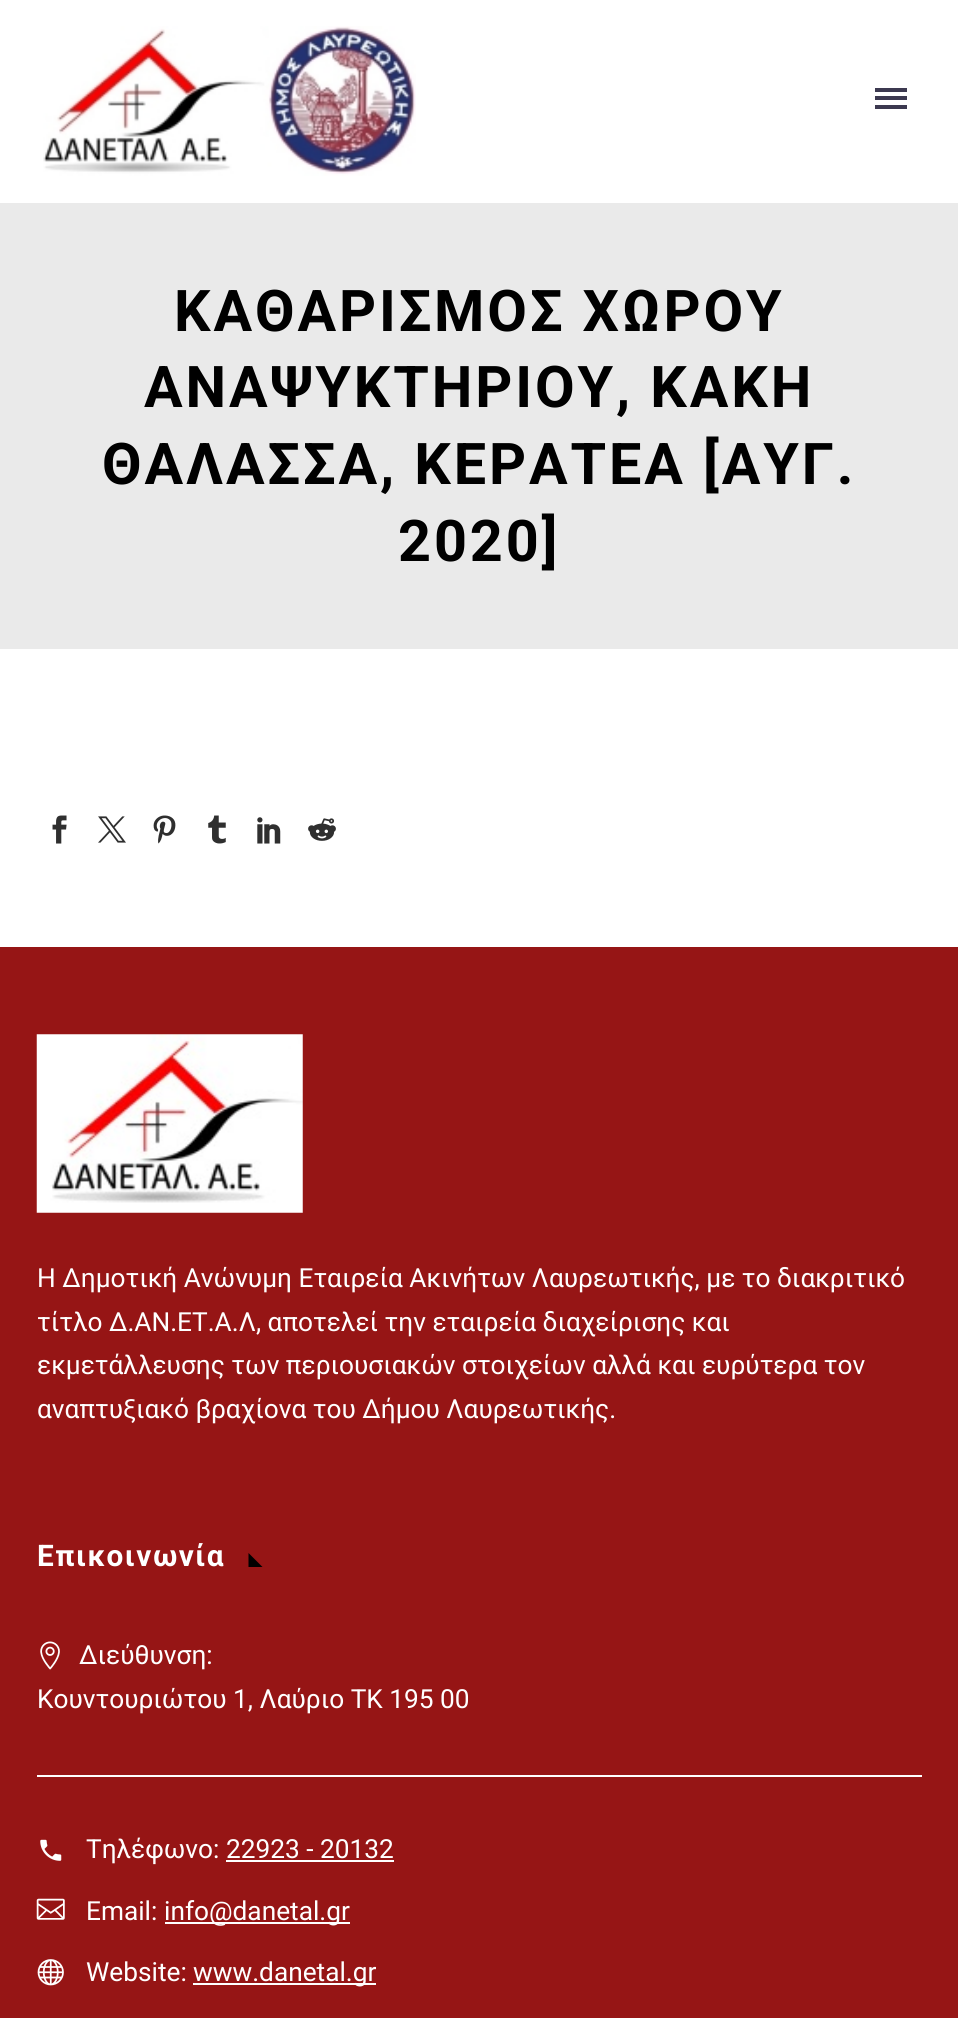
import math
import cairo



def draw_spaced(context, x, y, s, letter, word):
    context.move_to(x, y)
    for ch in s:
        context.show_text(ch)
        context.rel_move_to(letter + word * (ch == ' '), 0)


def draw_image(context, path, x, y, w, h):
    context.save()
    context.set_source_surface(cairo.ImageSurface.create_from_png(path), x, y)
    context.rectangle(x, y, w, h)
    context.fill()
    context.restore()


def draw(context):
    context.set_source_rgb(1, 1, 1)
    context.paint()
    draw_image(context, "images/1.png", 43, 26, 373, 150)
    context.set_source_rgb(60 / 255, 57 / 255, 80 / 255)
    context.rectangle(875, 88, 32, 4)
    context.fill()
    context.rectangle(875, 96, 32, 4)
    context.fill()
    context.rectangle(875, 105, 32, 4)
    context.fill()
    context.set_source_rgb(234 / 255, 234 / 255, 234 / 255)
    context.rectangle(0, 203, 958, 446)
    context.fill()
    draw_image(context, "images/2.png", 52, 815, 15, 29)
    draw_image(context, "images/3.png", 98, 816, 28, 27)
    draw_image(context, "images/4.png", 153, 815, 23, 29)
    draw_image(context, "images/5.png", 208, 815, 18, 29)
    draw_image(context, "images/6.png", 257, 817, 24, 27)
    draw_image(context, "images/7.png", 308, 818, 28, 23)
    context.set_source_rgb(150 / 255, 21 / 255, 21 / 255)
    context.rectangle(0, 947, 958, 1071)
    context.fill()
    draw_image(context, "images/8.png", 36, 1034, 267, 179)
    context.set_source_rgb(0, 0, 0)
    context.new_path()
    context.move_to(248.5, 1553)
    context.line_to(248.5, 1567)
    context.line_to(262.5, 1567)
    context.close_path()
    context.fill()
    context.set_source_rgb(1, 1, 1)
    context.rectangle(37, 1775, 885, 2)
    context.fill()
    draw_image(context, "images/9.png", 40, 1641, 20, 29)
    draw_image(context, "images/10.png", 40, 1839, 22, 22)
    context.rectangle(226, 1860, 168, 2)
    context.fill()
    draw_image(context, "images/11.png", 36, 1898, 29, 22)
    context.rectangle(165, 1922, 185, 2)
    context.fill()
    draw_image(context, "images/12.png", 37, 1959, 27, 27)
    context.rectangle(193, 1983, 183, 2)
    context.fill()
    context.select_font_face("Roboto", cairo.FontSlant.NORMAL, cairo.FontWeight.BOLD)
    context.set_font_size(57.5)
    context.set_source_rgb(0, 0, 0)
    draw_spaced(context, 174, 331, "ΚΑΘΑΡΙΣΜΟΣ ΧΩΡΟΥ", 2.9, 0)
    draw_spaced(context, 144, 407, "ΑΝΑΨΥΚΤΗΡΙΟΥ, ΚΑΚΗ", 2.9, 0)
    draw_spaced(context, 102, 484, "ΘΑΛΑΣΣΑ, ΚΕΡΑΤΕΑ [ΑΥΓ.", 2.9, 0)
    draw_spaced(context, 398, 561, "2020]", 2.9, 0)
    context.select_font_face("Roboto")
    context.set_font_size(26.25)
    context.set_source_rgb(1, 1, 1)
    context.move_to(37, 1287)
    context.show_text("H Δημοτική Ανώνυμη Εταιρεία Ακινήτων Λαυρεωτικής, με το διακριτικό")
    context.move_to(37, 1331)
    context.show_text("τίτλο Δ.ΑΝ.ΕΤ.Α.Λ, αποτελεί την εταιρεία διαχείρισης και")
    context.move_to(37, 1374)
    context.show_text("εκμετάλλευσης των περιουσιακών στοιχείων αλλά και ευρύτερα τον")
    context.move_to(37, 1418)
    context.show_text("αναπτυξιακό βραχίονα του Δήμου Λαυρεωτικής.")
    context.select_font_face("Roboto", cairo.FontSlant.NORMAL, cairo.FontWeight.BOLD)
    context.set_font_size(29.75)
    draw_spaced(context, 37, 1566, "Επικοινωνία", 1.5, 0)
    context.select_font_face("Roboto")
    context.set_font_size(26.25)
    context.move_to(79, 1664)
    context.show_text("Διεύθυνση:")
    context.move_to(37, 1708)
    context.show_text("Κουντουριώτου 1, Λαύριο ΤΚ 195 00")
    context.move_to(86, 1858)
    context.show_text("Τηλέφωνο: 22923 - 20132")
    context.move_to(86, 1920)
    context.show_text("Email:")
    context.move_to(164, 1920)
    context.show_text("info@danetal.gr")
    context.move_to(86, 1981)
    context.show_text("Website:")
    context.move_to(193, 1981)
    context.show_text("www.danetal.gr")


surface = cairo.ImageSurface(cairo.Format.RGB24, 958, 2018)
context = cairo.Context(surface)
options = cairo.FontOptions()
options.set_hint_metrics(cairo.HintMetrics.OFF)
options.set_hint_style(cairo.HintStyle.NONE)
context.set_font_options(options)
context.set_miter_limit(4)
draw(context)
surface.write_to_png("out.png")
